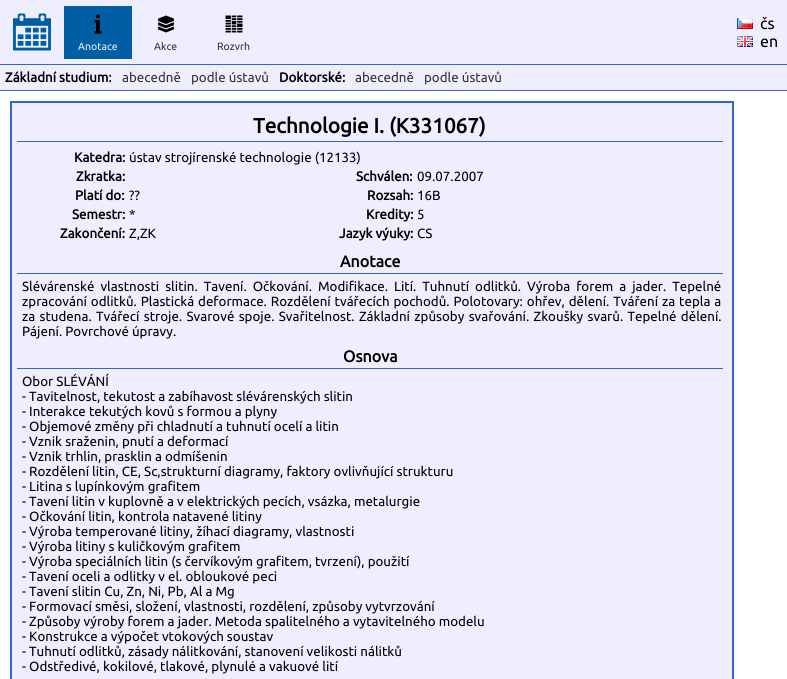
import math
import cairo



def draw_spaced(context, x, y, s, letter, word):
    context.move_to(x, y)
    for ch in s:
        context.show_text(ch)
        context.rel_move_to(letter + word * (ch == ' '), 0)


def draw_image(context, path, x, y, w, h):
    context.save()
    context.set_source_surface(cairo.ImageSurface.create_from_png(path), x, y)
    context.rectangle(x, y, w, h)
    context.fill()
    context.restore()


def draw(context):
    context.set_source_rgb(1, 1, 1)
    context.paint()
    context.set_source_rgb(238 / 255, 238 / 255, 1)
    context.rectangle(0, 0, 787, 64)
    context.fill()
    context.set_source_rgb(51 / 255, 102 / 255, 204 / 255)
    context.rectangle(0, 64, 787, 1)
    context.fill()
    draw_image(context, "images/1.png", 13, 13, 38, 38)
    context.set_source_rgb(0, 94 / 255, 165 / 255)
    context.rectangle(64, 6, 68, 53)
    context.fill()
    draw_image(context, "images/2.png", 94, 14, 8, 20)
    draw_image(context, "images/3.png", 158, 15, 16, 18)
    draw_image(context, "images/4.png", 225, 15, 18, 18)
    draw_image(context, "images/5.png", 737, 18, 16, 11)
    draw_image(context, "images/6.png", 737, 36, 16, 11)
    context.set_source_rgb(238 / 255, 238 / 255, 1)
    context.rectangle(0, 65, 787, 25)
    context.fill()
    context.set_source_rgb(51 / 255, 102 / 255, 204 / 255)
    context.rectangle(0, 90, 787, 1)
    context.fill()
    context.set_source_rgb(238 / 255, 238 / 255, 1)
    context.rectangle(11, 102, 722, 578)
    context.fill_preserve()
    context.set_source_rgb(51 / 255, 102 / 255, 204 / 255)
    context.stroke()
    context.rectangle(17, 141, 706, 1)
    context.fill()
    context.rectangle(17, 273, 706, 1)
    context.fill()
    context.rectangle(17, 368, 706, 1)
    context.fill()
    context.select_font_face("Ubuntu")
    context.set_font_size(10.5)
    context.set_source_rgb(238 / 255, 238 / 255, 238 / 255)
    context.move_to(78, 50)
    context.show_text("Anotace")
    context.set_source_rgb(51 / 255, 51 / 255, 51 / 255)
    context.move_to(154, 50)
    context.show_text("Akce")
    context.move_to(217, 50)
    context.show_text("Rozvrh")
    context.set_font_size(16)
    context.set_source_rgb(0, 0, 0)
    context.move_to(760, 29)
    context.show_text("čs")
    context.move_to(760, 47)
    context.show_text("en")
    context.select_font_face("Ubuntu", cairo.FontSlant.NORMAL, cairo.FontWeight.BOLD)
    context.set_font_size(13.33)
    context.move_to(5, 82)
    context.show_text("Základní studium:")
    context.select_font_face("Ubuntu")
    context.set_source_rgb(51 / 255, 51 / 255, 51 / 255)
    context.move_to(122, 82)
    context.show_text("abecedně")
    context.move_to(191, 82)
    context.show_text("podle ústavů")
    context.select_font_face("Ubuntu", cairo.FontSlant.NORMAL, cairo.FontWeight.BOLD)
    context.set_source_rgb(0, 0, 0)
    context.move_to(279, 82)
    context.show_text("Doktorské:")
    context.select_font_face("Ubuntu")
    context.set_source_rgb(51 / 255, 51 / 255, 51 / 255)
    context.move_to(355, 82)
    context.show_text("abecedně")
    context.move_to(424, 82)
    context.show_text("podle ústavů")
    context.select_font_face("Ubuntu", cairo.FontSlant.NORMAL, cairo.FontWeight.BOLD)
    context.set_font_size(20.75)
    context.set_source_rgb(0, 0, 0)
    context.move_to(253, 133)
    context.show_text("Technologie I. (K331067)")
    context.set_font_size(13.33)
    context.move_to(74, 162)
    context.show_text("Katedra:")
    context.select_font_face("Ubuntu")
    context.move_to(129, 162)
    context.show_text("ústav strojírenské technologie (12133)")
    context.select_font_face("Ubuntu", cairo.FontSlant.NORMAL, cairo.FontWeight.BOLD)
    context.move_to(76, 181)
    context.show_text("Zkratka:")
    context.move_to(356, 181)
    context.show_text("Schválen:")
    context.select_font_face("Ubuntu")
    context.move_to(417, 181)
    context.show_text("09.07.2007")
    context.select_font_face("Ubuntu", cairo.FontSlant.NORMAL, cairo.FontWeight.BOLD)
    context.move_to(75, 200)
    context.show_text("Platí do:")
    context.select_font_face("Ubuntu")
    context.move_to(129, 200)
    context.show_text("??")
    context.select_font_face("Ubuntu", cairo.FontSlant.NORMAL, cairo.FontWeight.BOLD)
    context.move_to(367, 200)
    context.show_text("Rozsah:")
    context.select_font_face("Ubuntu")
    context.move_to(417, 200)
    context.show_text("16B")
    context.select_font_face("Ubuntu", cairo.FontSlant.NORMAL, cairo.FontWeight.BOLD)
    context.move_to(72, 219)
    context.show_text("Semestr:")
    context.select_font_face("Ubuntu")
    context.move_to(129, 219)
    context.show_text("*")
    context.select_font_face("Ubuntu", cairo.FontSlant.NORMAL, cairo.FontWeight.BOLD)
    context.move_to(366, 219)
    context.show_text("Kredity:")
    context.select_font_face("Ubuntu")
    context.move_to(417, 219)
    context.show_text("5")
    context.select_font_face("Ubuntu", cairo.FontSlant.NORMAL, cairo.FontWeight.BOLD)
    context.move_to(60, 238)
    context.show_text("Zakončení:")
    context.select_font_face("Ubuntu")
    context.move_to(129, 238)
    context.show_text("Z,ZK")
    context.select_font_face("Ubuntu", cairo.FontSlant.NORMAL, cairo.FontWeight.BOLD)
    context.move_to(339, 238)
    context.show_text("Jazyk výuky:")
    context.select_font_face("Ubuntu")
    context.move_to(417, 238)
    context.show_text("CS")
    context.select_font_face("Ubuntu", cairo.FontSlant.NORMAL, cairo.FontWeight.BOLD)
    context.set_font_size(16)
    context.move_to(340, 267)
    context.show_text("Anotace")
    context.select_font_face("Ubuntu")
    context.set_font_size(13.33)
    draw_spaced(context, 22, 291, "Slévárenské vlastnosti slitin. Tavení. Očkování. Modifikace. Lití. Tuhnutí odlitků. Výroba forem a jader. Tepelné", 0, 2.9)
    draw_spaced(context, 22, 306, "zpracování odlitků. Plastická deformace. Rozdělení tvářecích pochodů. Polotovary: ohřev, dělení. Tváření za tepla a", 0, 0.8)
    draw_spaced(context, 22, 321, "za studena. Tvářecí stroje. Svarové spoje. Svařitelnost. Základní způsoby svařování. Zkoušky svarů. Tepelné dělení.", 0, 1.25)
    context.move_to(22, 336)
    context.show_text("Pájení. Povrchové úpravy.")
    context.select_font_face("Ubuntu", cairo.FontSlant.NORMAL, cairo.FontWeight.BOLD)
    context.set_font_size(16)
    context.move_to(343, 362)
    context.show_text("Osnova")
    context.select_font_face("Ubuntu")
    context.set_font_size(13.33)
    context.move_to(22, 386)
    context.show_text("Obor SLÉVÁNÍ")
    context.move_to(22, 401)
    context.show_text("- Tavitelnost, tekutost a zabíhavost slévárenských slitin")
    context.move_to(22, 416)
    context.show_text("- Interakce tekutých kovů s formou a plyny")
    context.move_to(22, 431)
    context.show_text("- Objemové změny při chladnutí a tuhnutí ocelí a litin")
    context.move_to(22, 446)
    context.show_text("- Vznik sraženin, pnutí a deformací")
    context.move_to(22, 461)
    context.show_text("- Vznik trhlin, prasklin a odmíšenin")
    context.move_to(22, 476)
    context.show_text("- Rozdělení litin, CE, Sc,strukturní diagramy, faktory ovlivňující strukturu")
    context.move_to(22, 491)
    context.show_text("- Litina s lupínkovým grafitem")
    context.move_to(22, 506)
    context.show_text("- Tavení litin v kuplovně a v elektrických pecích, vsázka, metalurgie")
    context.move_to(22, 521)
    context.show_text("- Očkování litin, kontrola natavené litiny")
    context.move_to(22, 536)
    context.show_text("- Výroba temperované litiny, žíhací diagramy, vlastnosti")
    context.move_to(22, 551)
    context.show_text("- Výroba litiny s kuličkovým grafitem")
    context.move_to(22, 566)
    context.show_text("- Výroba speciálních litin (s červíkovým grafitem, tvrzení), použití")
    context.move_to(22, 581)
    context.show_text("- Tavení oceli a odlitky v el. obloukové peci")
    context.move_to(22, 596)
    context.show_text("- Tavení slitin Cu, Zn, Ni, Pb, Al a Mg")
    context.move_to(22, 611)
    context.show_text("- Formovací směsi, složení, vlastnosti, rozdělení, způsoby vytvrzování")
    context.move_to(22, 626)
    context.show_text("- Způsoby výroby forem a jader. Metoda spalitelného a vytavitelného modelu")
    context.move_to(22, 641)
    context.show_text("- Konstrukce a výpočet vtokových soustav")
    context.move_to(22, 656)
    context.show_text("- Tuhnutí odlitků, zásady nálitkování, stanovení velikosti nálitků")
    context.move_to(22, 671)
    context.show_text("- Odstředivé, kokilové, tlakové, plynulé a vakuové lití")


surface = cairo.ImageSurface(cairo.Format.RGB24, 787, 679)
context = cairo.Context(surface)
options = cairo.FontOptions()
options.set_hint_metrics(cairo.HintMetrics.OFF)
options.set_hint_style(cairo.HintStyle.NONE)
context.set_font_options(options)
context.set_miter_limit(4)
draw(context)
surface.write_to_png("out.png")
